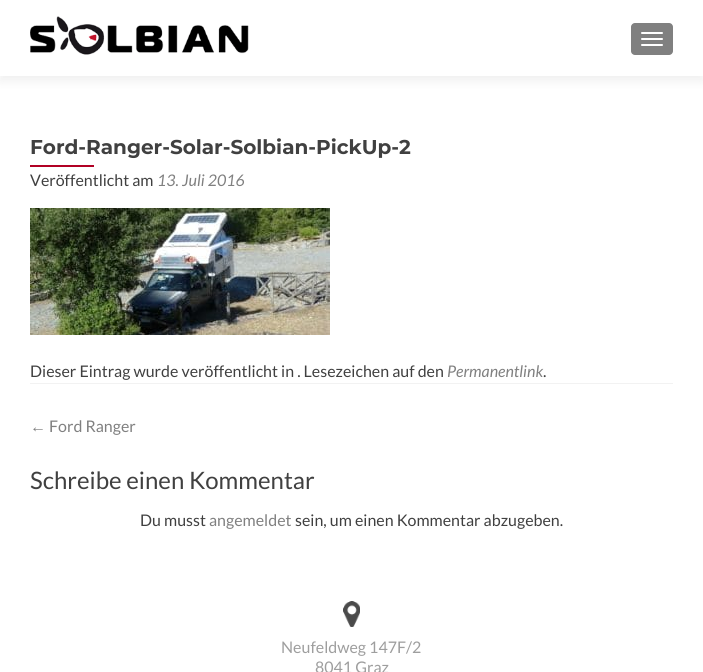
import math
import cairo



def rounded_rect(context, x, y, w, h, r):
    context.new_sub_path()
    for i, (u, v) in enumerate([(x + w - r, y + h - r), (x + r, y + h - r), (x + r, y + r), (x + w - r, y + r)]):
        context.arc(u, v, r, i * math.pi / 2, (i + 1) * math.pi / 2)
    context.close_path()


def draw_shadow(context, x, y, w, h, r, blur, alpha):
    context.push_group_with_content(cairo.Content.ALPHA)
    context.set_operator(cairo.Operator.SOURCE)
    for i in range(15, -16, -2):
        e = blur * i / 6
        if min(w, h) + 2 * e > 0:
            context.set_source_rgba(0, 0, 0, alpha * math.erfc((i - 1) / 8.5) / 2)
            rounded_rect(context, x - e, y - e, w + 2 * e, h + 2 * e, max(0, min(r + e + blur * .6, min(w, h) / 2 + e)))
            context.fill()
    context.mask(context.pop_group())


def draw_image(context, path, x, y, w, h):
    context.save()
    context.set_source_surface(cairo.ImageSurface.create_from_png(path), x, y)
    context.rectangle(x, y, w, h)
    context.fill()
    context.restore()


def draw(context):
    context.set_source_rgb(1, 1, 1)
    context.paint()
    context.set_source_rgb(50 / 255, 50 / 255, 50 / 255)
    draw_shadow(context, 0, 5, 703, 76, 0, 5.5, 0.08)
    context.set_source_rgb(1, 1, 1)
    context.rectangle(0, 0, 703, 76)
    context.fill()
    draw_image(context, "images/1.png", 30, 16, 219, 39)
    context.set_source_rgb(128 / 255, 128 / 255, 128 / 255)
    rounded_rect(context, 631, 23, 42, 32, 4)
    context.fill()
    context.set_source_rgb(1, 1, 1)
    rounded_rect(context, 641, 32, 22, 2, 1)
    context.fill()
    rounded_rect(context, 641, 38, 22, 2, 1)
    context.fill()
    rounded_rect(context, 641, 44, 22, 2, 1)
    context.fill()
    context.set_source_rgb(242 / 255, 242 / 255, 242 / 255)
    context.rectangle(30, 383, 643, 1)
    context.fill()
    context.set_source_rgb(177 / 255, 0, 36 / 255)
    context.rectangle(30, 165, 64, 2)
    context.fill()
    draw_image(context, "images/2.png", 30, 208, 300, 127)
    draw_image(context, "images/3.png", 343, 601, 17, 26)
    context.select_font_face("Montserrat Thin")
    context.set_font_size(20)
    context.set_source_rgb(64 / 255, 64 / 255, 64 / 255)
    context.move_to(30, 154)
    context.show_text("Ford-Ranger-Solar-Solbian-PickUp-2")
    context.select_font_face("Lato")
    context.set_font_size(16)
    context.move_to(30, 186)
    context.show_text("Veröffentlicht am")
    context.select_font_face("Lato", cairo.FontSlant.ITALIC)
    context.set_source_rgb(128 / 255, 128 / 255, 128 / 255)
    context.move_to(157, 186)
    context.show_text("13. Juli 2016")
    context.select_font_face("Lato")
    context.set_source_rgb(64 / 255, 64 / 255, 64 / 255)
    context.move_to(30, 377)
    context.show_text("Dieser Eintrag wurde veröffentlicht in . Lesezeichen auf den")
    context.select_font_face("Lato", cairo.FontSlant.ITALIC)
    context.set_source_rgb(128 / 255, 128 / 255, 128 / 255)
    context.move_to(447, 377)
    context.show_text("Permanentlink")
    context.select_font_face("Lato")
    context.set_source_rgb(64 / 255, 64 / 255, 64 / 255)
    context.move_to(543, 377)
    context.show_text(".")
    context.select_font_face("Liberation Sans")
    context.set_source_rgb(128 / 255, 128 / 255, 128 / 255)
    context.move_to(30, 432)
    context.show_text("←")
    context.select_font_face("Lato")
    context.move_to(49, 432)
    context.show_text("Ford Ranger")
    context.set_font_size(24)
    context.set_source_rgb(64 / 255, 64 / 255, 64 / 255)
    context.move_to(30, 489)
    context.show_text("Schreibe einen Kommentar")
    context.set_font_size(16)
    context.move_to(140, 526)
    context.show_text("Du musst")
    context.set_source_rgb(128 / 255, 128 / 255, 128 / 255)
    context.move_to(209, 526)
    context.show_text("angemeldet")
    context.set_source_rgb(64 / 255, 64 / 255, 64 / 255)
    context.move_to(295, 526)
    context.show_text("sein, um einen Kommentar abzugeben.")
    context.set_source_rgb(158 / 255, 158 / 255, 158 / 255)
    context.move_to(281, 653)
    context.show_text("Neufeldweg 147F/2")
    context.move_to(315, 673)
    context.show_text("8041 Graz")


surface = cairo.ImageSurface(cairo.Format.RGB24, 703, 672)
context = cairo.Context(surface)
options = cairo.FontOptions()
options.set_hint_metrics(cairo.HintMetrics.OFF)
options.set_hint_style(cairo.HintStyle.NONE)
context.set_font_options(options)
context.set_miter_limit(4)
draw(context)
surface.write_to_png("out.png")
